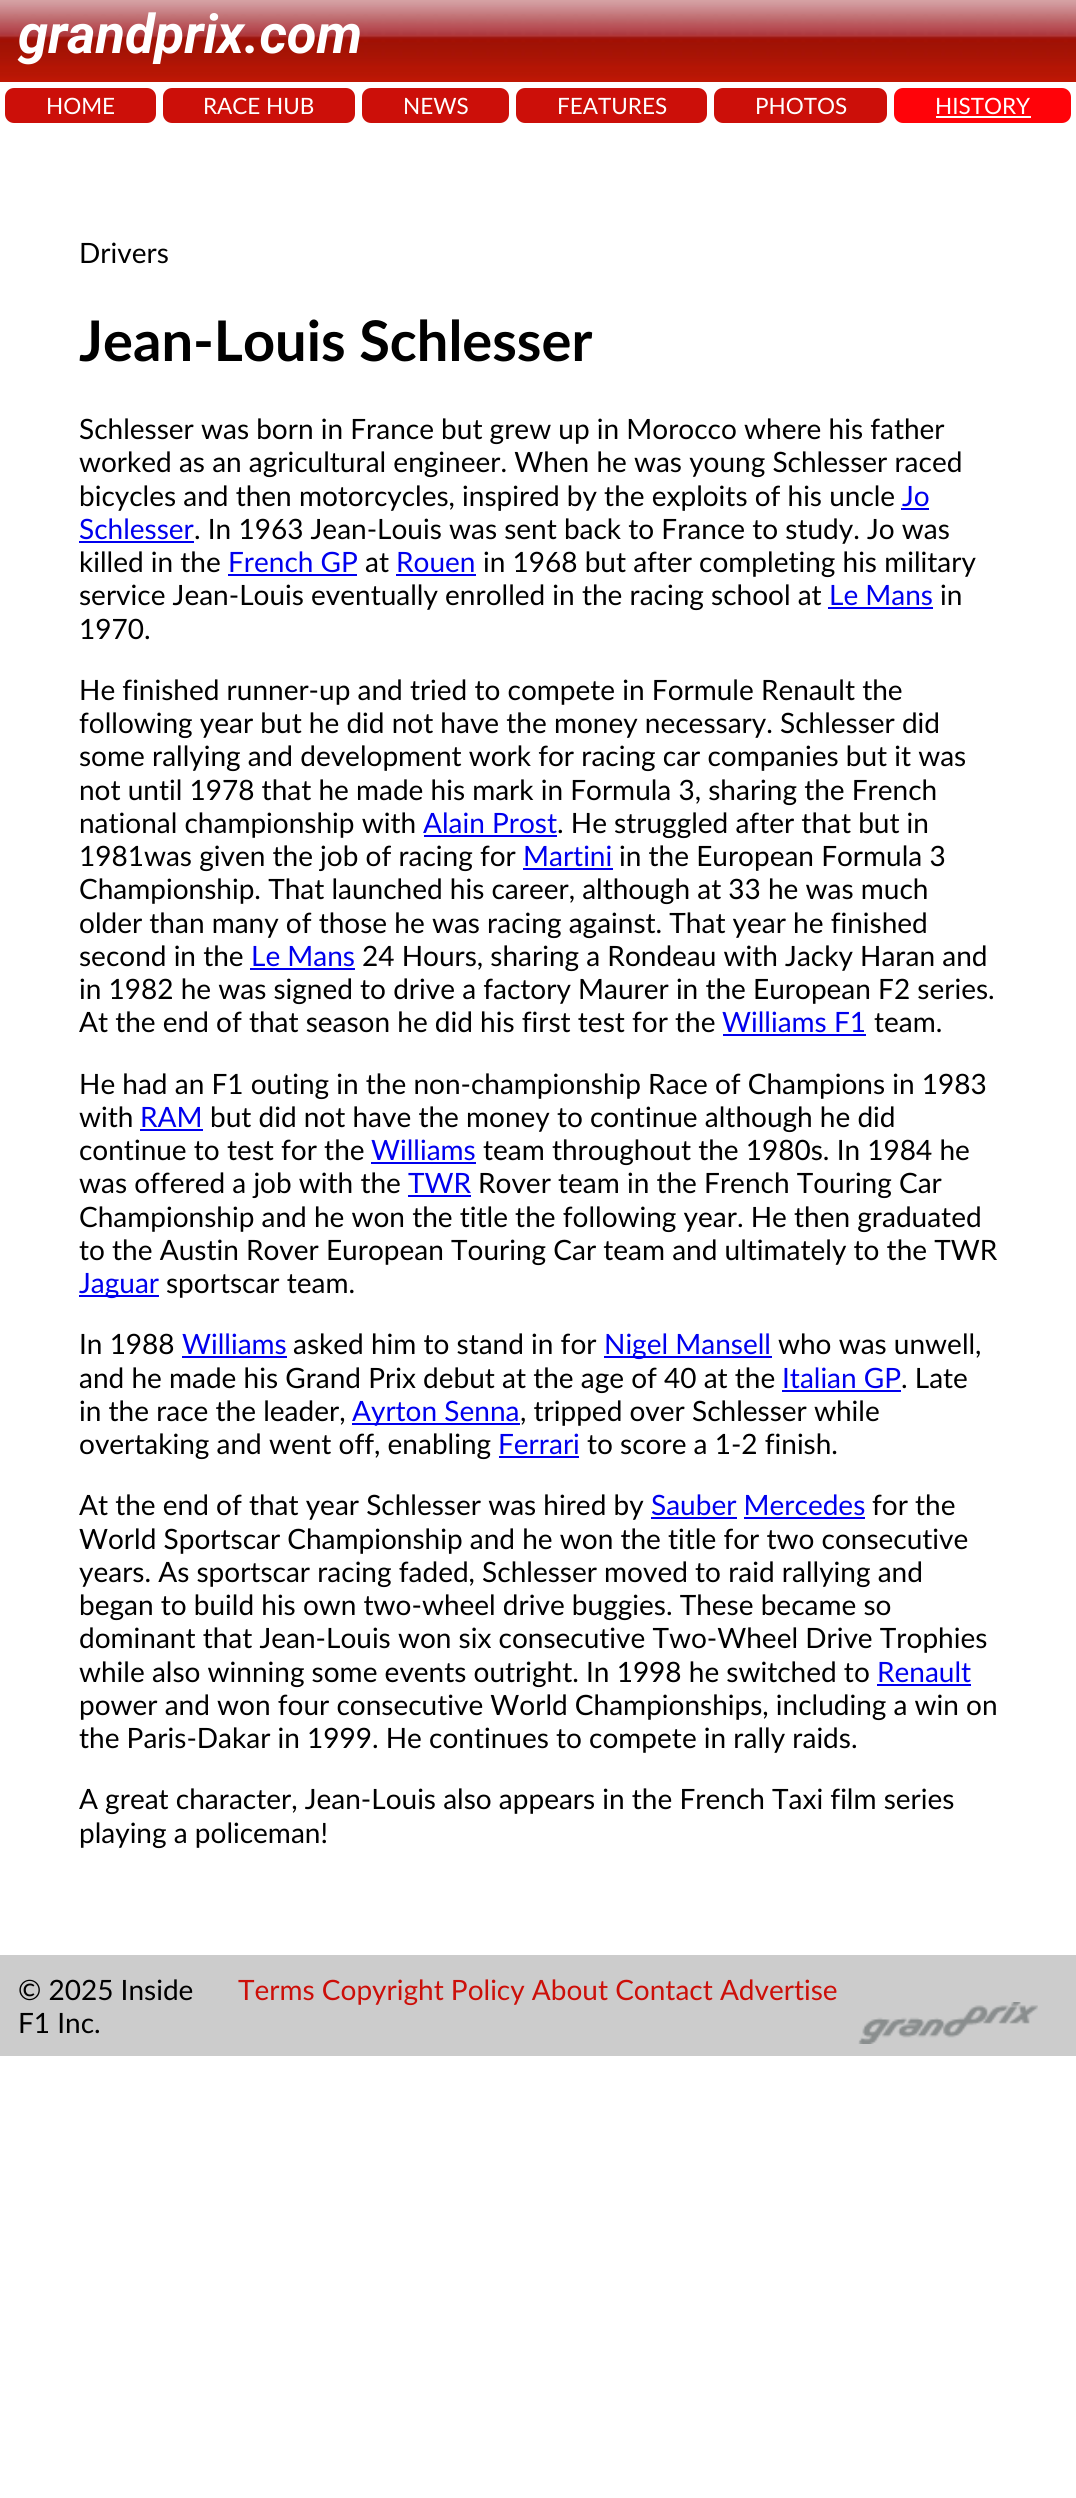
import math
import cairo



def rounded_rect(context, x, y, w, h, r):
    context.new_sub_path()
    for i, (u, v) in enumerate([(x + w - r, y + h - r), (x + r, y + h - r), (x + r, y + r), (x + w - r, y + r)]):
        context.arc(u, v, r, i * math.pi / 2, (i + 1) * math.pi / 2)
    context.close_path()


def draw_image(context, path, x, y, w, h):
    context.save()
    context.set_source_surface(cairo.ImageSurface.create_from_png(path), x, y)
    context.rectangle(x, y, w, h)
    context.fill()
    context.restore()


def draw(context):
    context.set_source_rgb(1, 1, 1)
    context.paint()
    draw_image(context, "images/1.png", 0, 0, 1076, 82)
    context.set_source_rgb(204 / 255, 15 / 255, 9 / 255)
    rounded_rect(context, 5, 88, 151, 35, 9)
    context.fill()
    rounded_rect(context, 163, 88, 192, 35, 9)
    context.fill()
    rounded_rect(context, 362, 88, 147, 35, 9)
    context.fill()
    rounded_rect(context, 516, 88, 191, 35, 9)
    context.fill()
    rounded_rect(context, 714, 88, 173, 35, 9)
    context.fill()
    context.set_source_rgb(1, 3 / 255, 9 / 255)
    rounded_rect(context, 894, 88, 177, 35, 9)
    context.fill()
    context.set_source_rgb(1, 1, 1)
    context.rectangle(936, 116, 95, 2)
    context.fill()
    context.set_source_rgb(0, 0, 238 / 255)
    context.rectangle(901, 508, 28, 2)
    context.fill()
    context.rectangle(79, 541, 115, 2)
    context.fill()
    context.rectangle(228, 574, 129, 2)
    context.fill()
    context.rectangle(396, 574, 80, 2)
    context.fill()
    context.rectangle(828, 607, 105, 2)
    context.fill()
    context.rectangle(424, 835, 133, 2)
    context.fill()
    context.rectangle(523, 868, 90, 2)
    context.fill()
    context.rectangle(250, 968, 105, 2)
    context.fill()
    context.rectangle(723, 1034, 143, 2)
    context.fill()
    context.rectangle(140, 1129, 63, 2)
    context.fill()
    context.rectangle(371, 1162, 105, 2)
    context.fill()
    context.rectangle(408, 1195, 63, 2)
    context.fill()
    context.rectangle(79, 1295, 80, 2)
    context.fill()
    context.rectangle(182, 1356, 105, 2)
    context.fill()
    context.rectangle(604, 1356, 168, 2)
    context.fill()
    context.rectangle(782, 1390, 119, 2)
    context.fill()
    context.rectangle(352, 1423, 168, 2)
    context.fill()
    context.rectangle(499, 1456, 80, 2)
    context.fill()
    context.rectangle(651, 1517, 86, 2)
    context.fill()
    context.rectangle(744, 1517, 121, 2)
    context.fill()
    context.rectangle(877, 1684, 94, 2)
    context.fill()
    context.set_source_rgb(204 / 255, 204 / 255, 204 / 255)
    context.rectangle(0, 1955, 1076, 101)
    context.fill()
    draw_image(context, "images/2.png", 858, 2002, 180, 42)
    context.select_font_face("Roboto", cairo.FontSlant.ITALIC, cairo.FontWeight.BOLD)
    context.set_font_size(54.25)
    context.set_source_rgb(1, 1, 1)
    context.move_to(18, 53)
    context.show_text("grandprix.com")
    context.select_font_face("Lato")
    context.set_font_size(22.5)
    context.move_to(46, 114)
    context.show_text("HOME")
    context.move_to(203, 114)
    context.show_text("RACE HUB")
    context.move_to(403, 114)
    context.show_text("NEWS")
    context.move_to(557, 114)
    context.show_text("FEATURES")
    context.move_to(755, 114)
    context.show_text("PHOTOS")
    context.move_to(935, 114)
    context.show_text("HISTORY")
    context.set_font_size(28)
    context.set_source_rgb(0, 0, 0)
    context.move_to(79, 263)
    context.show_text("Drivers")
    context.select_font_face("Lato", cairo.FontSlant.NORMAL, cairo.FontWeight.BOLD)
    context.set_font_size(56)
    context.move_to(79, 361)
    context.show_text("Jean-Louis Schlesser")
    context.select_font_face("Lato")
    context.set_font_size(28)
    context.move_to(79, 439)
    context.show_text("Schlesser was born in France but grew up in Morocco where his father")
    context.move_to(79, 472)
    context.show_text("worked as an agricultural engineer. When he was young Schlesser raced")
    context.move_to(79, 506)
    context.show_text("bicycles and then motorcycles, inspired by the exploits of his uncle")
    context.set_source_rgb(0, 0, 238 / 255)
    context.move_to(902, 506)
    context.show_text("Jo")
    context.move_to(79, 539)
    context.show_text("Schlesser")
    context.set_source_rgb(0, 0, 0)
    context.move_to(194, 539)
    context.show_text(". In 1963 Jean-Louis was sent back to France to study. Jo was")
    context.move_to(79, 572)
    context.show_text("killed in the")
    context.set_source_rgb(0, 0, 238 / 255)
    context.move_to(228, 572)
    context.show_text("French GP")
    context.set_source_rgb(0, 0, 0)
    context.move_to(365, 572)
    context.show_text("at")
    context.set_source_rgb(0, 0, 238 / 255)
    context.move_to(396, 572)
    context.show_text("Rouen")
    context.set_source_rgb(0, 0, 0)
    context.move_to(483, 572)
    context.show_text("in 1968 but after completing his military")
    context.move_to(79, 605)
    context.show_text("service Jean-Louis eventually enrolled in the racing school at")
    context.set_source_rgb(0, 0, 238 / 255)
    context.move_to(829, 605)
    context.show_text("Le Mans")
    context.set_source_rgb(0, 0, 0)
    context.move_to(940, 605)
    context.show_text("in")
    context.move_to(79, 639)
    context.show_text("1970.")
    context.move_to(79, 700)
    context.show_text("He finished runner-up and tried to compete in Formule Renault the")
    context.move_to(79, 733)
    context.show_text("following year but he did not have the money necessary. Schlesser did")
    context.move_to(79, 766)
    context.show_text("some rallying and development work for racing car companies but it was")
    context.move_to(79, 800)
    context.show_text("not until 1978 that he made his mark in Formula 3, sharing the French")
    context.move_to(79, 833)
    context.show_text("national championship with")
    context.set_source_rgb(0, 0, 238 / 255)
    context.move_to(423, 833)
    context.show_text("Alain Prost")
    context.set_source_rgb(0, 0, 0)
    context.move_to(557, 833)
    context.show_text(". He struggled after that but in")
    context.move_to(79, 866)
    context.show_text("1981was given the job of racing for")
    context.set_source_rgb(0, 0, 238 / 255)
    context.move_to(523, 866)
    context.show_text("Martini")
    context.set_source_rgb(0, 0, 0)
    context.move_to(619, 866)
    context.show_text("in the European Formula 3")
    context.move_to(79, 899)
    context.show_text("Championship. That launched his career, although at 33 he was much")
    context.move_to(79, 933)
    context.show_text("older than many of those he was racing against. That year he finished")
    context.move_to(79, 966)
    context.show_text("second in the")
    context.set_source_rgb(0, 0, 238 / 255)
    context.move_to(251, 966)
    context.show_text("Le Mans")
    context.set_source_rgb(0, 0, 0)
    context.move_to(362, 966)
    context.show_text("24 Hours, sharing a Rondeau with Jacky Haran and")
    context.move_to(79, 999)
    context.show_text("in 1982 he was signed to drive a factory Maurer in the European F2 series.")
    context.move_to(79, 1032)
    context.show_text("At the end of that season he did his first test for the")
    context.set_source_rgb(0, 0, 238 / 255)
    context.move_to(722, 1032)
    context.show_text("Williams F1")
    context.set_source_rgb(0, 0, 0)
    context.move_to(874, 1032)
    context.show_text("team.")
    context.move_to(79, 1094)
    context.show_text("He had an F1 outing in the non-championship Race of Champions in 1983")
    context.move_to(79, 1127)
    context.show_text("with")
    context.set_source_rgb(0, 0, 238 / 255)
    context.move_to(140, 1127)
    context.show_text("RAM")
    context.set_source_rgb(0, 0, 0)
    context.move_to(210, 1127)
    context.show_text("but did not have the money to continue although he did")
    context.move_to(79, 1160)
    context.show_text("continue to test for the")
    context.set_source_rgb(0, 0, 238 / 255)
    context.move_to(371, 1160)
    context.show_text("Williams")
    context.set_source_rgb(0, 0, 0)
    context.move_to(483, 1160)
    context.show_text("team throughout the 1980s. In 1984 he")
    context.move_to(79, 1193)
    context.show_text("was offered a job with the")
    context.set_source_rgb(0, 0, 238 / 255)
    context.move_to(408, 1193)
    context.show_text("TWR")
    context.set_source_rgb(0, 0, 0)
    context.move_to(478, 1193)
    context.show_text("Rover team in the French Touring Car")
    context.move_to(79, 1227)
    context.show_text("Championship and he won the title the following year. He then graduated")
    context.move_to(79, 1260)
    context.show_text("to the Austin Rover European Touring Car team and ultimately to the TWR")
    context.set_source_rgb(0, 0, 238 / 255)
    context.move_to(79, 1293)
    context.show_text("Jaguar")
    context.set_source_rgb(0, 0, 0)
    context.move_to(166, 1293)
    context.show_text("sportscar team.")
    context.move_to(79, 1354)
    context.show_text("In 1988")
    context.set_source_rgb(0, 0, 238 / 255)
    context.move_to(182, 1354)
    context.show_text("Williams")
    context.set_source_rgb(0, 0, 0)
    context.move_to(293, 1354)
    context.show_text("asked him to stand in for")
    context.set_source_rgb(0, 0, 238 / 255)
    context.move_to(604, 1354)
    context.show_text("Nigel Mansell")
    context.set_source_rgb(0, 0, 0)
    context.move_to(778, 1354)
    context.show_text("who was unwell,")
    context.move_to(79, 1388)
    context.show_text("and he made his Grand Prix debut at the age of 40 at the")
    context.set_source_rgb(0, 0, 238 / 255)
    context.move_to(782, 1388)
    context.show_text("Italian GP")
    context.set_source_rgb(0, 0, 0)
    context.move_to(901, 1388)
    context.show_text(". Late")
    context.move_to(79, 1421)
    context.show_text("in the race the leader,")
    context.set_source_rgb(0, 0, 238 / 255)
    context.move_to(352, 1421)
    context.show_text("Ayrton Senna")
    context.set_source_rgb(0, 0, 0)
    context.move_to(520, 1421)
    context.show_text(", tripped over Schlesser while")
    context.move_to(79, 1454)
    context.show_text("overtaking and went off, enabling")
    context.set_source_rgb(0, 0, 238 / 255)
    context.move_to(498, 1454)
    context.show_text("Ferrari")
    context.set_source_rgb(0, 0, 0)
    context.move_to(587, 1454)
    context.show_text("to score a 1-2 finish.")
    context.move_to(79, 1515)
    context.show_text("At the end of that year Schlesser was hired by")
    context.set_source_rgb(0, 0, 238 / 255)
    context.move_to(651, 1515)
    context.show_text("Sauber Mercedes")
    context.set_source_rgb(0, 0, 0)
    context.move_to(872, 1515)
    context.show_text("for the")
    context.move_to(79, 1549)
    context.show_text("World Sportscar Championship and he won the title for two consecutive")
    context.move_to(79, 1582)
    context.show_text("years. As sportscar racing faded, Schlesser moved to raid rallying and")
    context.move_to(79, 1615)
    context.show_text("began to build his own two-wheel drive buggies. These became so")
    context.move_to(79, 1648)
    context.show_text("dominant that Jean-Louis won six consecutive Two-Wheel Drive Trophies")
    context.move_to(79, 1682)
    context.show_text("while also winning some events outright. In 1998 he switched to")
    context.set_source_rgb(0, 0, 238 / 255)
    context.move_to(877, 1682)
    context.show_text("Renault")
    context.set_source_rgb(0, 0, 0)
    context.move_to(79, 1715)
    context.show_text("power and won four consecutive World Championships, including a win on")
    context.move_to(79, 1748)
    context.show_text("the Paris-Dakar in 1999. He continues to compete in rally raids.")
    context.move_to(79, 1809)
    context.show_text("A great character, Jean-Louis also appears in the French Taxi film series")
    context.move_to(79, 1843)
    context.show_text("playing a policeman!")
    context.move_to(18, 2000)
    context.show_text("© 2025 Inside")
    context.move_to(18, 2033)
    context.show_text("F1 Inc.")
    context.set_source_rgb(204 / 255, 15 / 255, 9 / 255)
    context.move_to(238, 2000)
    context.show_text("Terms Copyright Policy About Contact Advertise")


surface = cairo.ImageSurface(cairo.Format.RGB24, 1076, 2498)
context = cairo.Context(surface)
options = cairo.FontOptions()
options.set_hint_metrics(cairo.HintMetrics.OFF)
options.set_hint_style(cairo.HintStyle.NONE)
context.set_font_options(options)
context.set_miter_limit(4)
draw(context)
surface.write_to_png("out.png")
